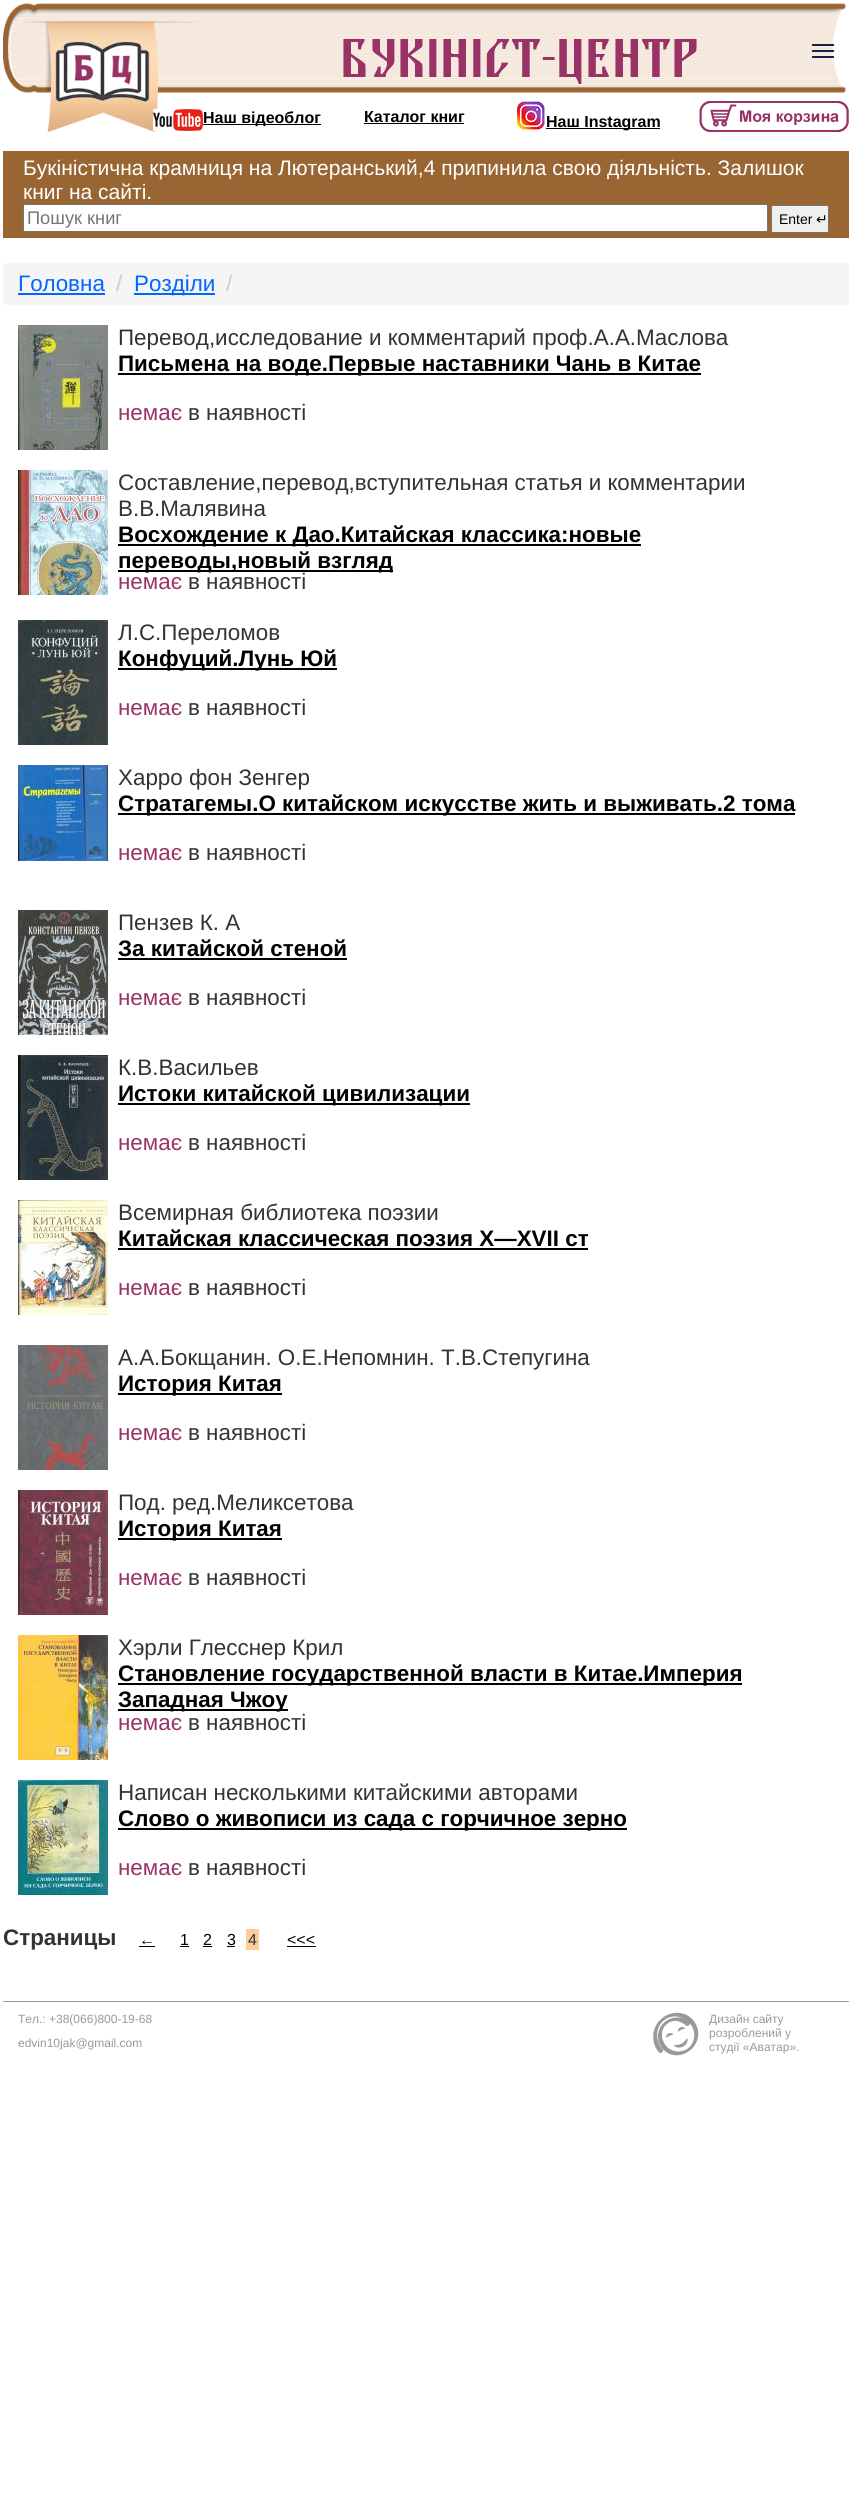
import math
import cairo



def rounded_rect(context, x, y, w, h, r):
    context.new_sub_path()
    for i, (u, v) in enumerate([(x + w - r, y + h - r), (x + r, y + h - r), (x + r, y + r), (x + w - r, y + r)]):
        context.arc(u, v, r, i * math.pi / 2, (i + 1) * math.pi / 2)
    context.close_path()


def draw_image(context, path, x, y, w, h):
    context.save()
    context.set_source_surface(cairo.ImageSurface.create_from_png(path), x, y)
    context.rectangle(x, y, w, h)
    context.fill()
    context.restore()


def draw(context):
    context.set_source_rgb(1, 1, 1)
    context.paint()
    draw_image(context, "images/1.png", 3, 3, 198, 90)
    draw_image(context, "images/2.png", 45, 21, 113, 111)
    draw_image(context, "images/3.png", 201, 3, 630, 90)
    draw_image(context, "images/4.png", 343, 39, 354, 45)
    draw_image(context, "images/5.png", 831, 3, 15, 90)
    context.set_source_rgb(23 / 255, 31 / 255, 70 / 255)
    rounded_rect(context, 812, 44, 22, 2, 0.5)
    context.fill()
    rounded_rect(context, 812, 50, 22, 2, 0.5)
    context.fill()
    rounded_rect(context, 812, 56, 22, 2, 0.5)
    context.fill()
    draw_image(context, "images/6.png", 153, 109, 50, 22)
    context.set_source_rgb(0, 0, 0)
    context.rectangle(203, 124, 118, 1)
    context.fill()
    context.rectangle(364, 123, 100, 1)
    context.fill()
    draw_image(context, "images/7.png", 517, 101, 28, 29)
    context.rectangle(546, 128, 114, 1)
    context.fill()
    draw_image(context, "images/8.png", 699, 101, 150, 31)
    context.set_source_rgb(153 / 255, 102 / 255, 51 / 255)
    context.rectangle(3, 151, 846, 87)
    context.fill()
    context.set_source_rgb(1, 1, 1)
    rounded_rect(context, 23.5, 204.5, 744, 27, 1.5)
    context.fill_preserve()
    context.set_source_rgb(118 / 255, 118 / 255, 118 / 255)
    context.set_line_width(1)
    context.stroke()
    context.set_source_rgb(239 / 255, 239 / 255, 239 / 255)
    rounded_rect(context, 771.5, 205.5, 57, 27, 1.5)
    context.fill_preserve()
    context.set_source_rgb(118 / 255, 118 / 255, 118 / 255)
    context.stroke()
    context.set_source_rgb(245 / 255, 245 / 255, 245 / 255)
    rounded_rect(context, 3, 263, 846, 42, 4)
    context.fill()
    context.set_source_rgb(0, 102 / 255, 1)
    context.rectangle(18, 293, 87, 2)
    context.fill()
    context.rectangle(134, 293, 81, 2)
    context.fill()
    draw_image(context, "images/9.png", 18, 325, 90, 125)
    context.set_source_rgb(0, 0, 0)
    context.rectangle(118, 373, 583, 2)
    context.fill()
    draw_image(context, "images/10.png", 18, 470, 90, 125)
    context.rectangle(118, 544, 523, 2)
    context.fill()
    context.rectangle(118, 570, 275, 2)
    context.fill()
    draw_image(context, "images/11.png", 18, 620, 90, 125)
    context.rectangle(118, 668, 219, 2)
    context.fill()
    draw_image(context, "images/12.png", 18, 765, 90, 96)
    context.rectangle(118, 813, 677, 2)
    context.fill()
    draw_image(context, "images/13.png", 18, 910, 90, 125)
    context.rectangle(118, 958, 229, 2)
    context.fill()
    draw_image(context, "images/14.png", 18, 1055, 90, 125)
    context.rectangle(118, 1103, 352, 2)
    context.fill()
    draw_image(context, "images/15.png", 18, 1200, 90, 115)
    context.rectangle(118, 1248, 470, 2)
    context.fill()
    draw_image(context, "images/16.png", 18, 1345, 90, 125)
    context.rectangle(118, 1393, 164, 2)
    context.fill()
    draw_image(context, "images/17.png", 18, 1490, 90, 125)
    context.rectangle(118, 1538, 164, 2)
    context.fill()
    draw_image(context, "images/18.png", 18, 1635, 90, 125)
    context.rectangle(118, 1683, 624, 2)
    context.fill()
    context.rectangle(118, 1709, 170, 2)
    context.fill()
    draw_image(context, "images/19.png", 18, 1780, 90, 115)
    context.rectangle(118, 1828, 509, 2)
    context.fill()
    context.rectangle(139, 1946, 16, 1)
    context.fill()
    context.rectangle(180, 1946, 9, 1)
    context.fill()
    context.rectangle(203, 1946, 9, 1)
    context.fill()
    context.rectangle(227, 1946, 8, 1)
    context.fill()
    context.set_source_rgb(1, 204 / 255, 153 / 255)
    context.rectangle(246, 1929, 13, 21)
    context.fill()
    context.set_source_rgb(0, 0, 0)
    context.rectangle(287, 1946, 29, 1)
    context.fill()
    context.set_source_rgb(153 / 255, 153 / 255, 153 / 255)
    context.rectangle(3, 2001, 846, 1)
    context.fill()
    draw_image(context, "images/20.png", 653, 2012, 46, 44)
    context.select_font_face("Liberation Sans", cairo.FontSlant.NORMAL, cairo.FontWeight.BOLD)
    context.set_font_size(16)
    context.set_source_rgb(0, 0, 0)
    context.move_to(203, 123)
    context.show_text("Наш відеоблог")
    context.move_to(364, 122)
    context.show_text("Каталог книг")
    context.move_to(546, 127)
    context.show_text("Наш Instagram")
    context.select_font_face("Liberation Sans")
    context.set_font_size(21)
    context.set_source_rgb(1, 1, 1)
    context.move_to(23, 175)
    context.show_text("Букіністична крамниця на Лютеранський,4 припинила свою діяльність. Залишок")
    context.move_to(23, 199)
    context.show_text("книг на сайті.")
    context.set_font_size(18.25)
    context.set_source_rgb(117 / 255, 117 / 255, 117 / 255)
    context.move_to(27, 224)
    context.show_text("Пошук книг")
    context.set_font_size(14)
    context.set_source_rgb(0, 0, 0)
    context.move_to(779, 224)
    context.show_text("Enter")
    context.select_font_face("DejaVu Sans")
    context.move_to(816, 224)
    context.show_text("↵")
    context.select_font_face("Liberation Sans")
    context.set_font_size(22.4)
    context.set_source_rgb(0, 102 / 255, 1)
    context.move_to(18, 291)
    context.show_text("Головна")
    context.set_source_rgb(204 / 255, 204 / 255, 204 / 255)
    context.move_to(116, 291)
    context.show_text("/")
    context.set_source_rgb(0, 102 / 255, 1)
    context.move_to(134, 291)
    context.show_text("Розділи")
    context.set_source_rgb(204 / 255, 204 / 255, 204 / 255)
    context.move_to(226, 291)
    context.show_text("/")
    context.set_source_rgb(51 / 255, 51 / 255, 51 / 255)
    context.move_to(118, 345)
    context.show_text("Перевод,исследование и комментарий проф.А.А.Маслова")
    context.select_font_face("Liberation Sans", cairo.FontSlant.NORMAL, cairo.FontWeight.BOLD)
    context.set_source_rgb(0, 0, 0)
    context.move_to(118, 371)
    context.show_text("Письмена на воде.Первые наставники Чань в Китае")
    context.select_font_face("Liberation Sans")
    context.set_source_rgb(153 / 255, 51 / 255, 102 / 255)
    context.move_to(118, 420)
    context.show_text("немає")
    context.set_source_rgb(51 / 255, 51 / 255, 51 / 255)
    context.move_to(188, 420)
    context.show_text("в наявності")
    context.move_to(118, 490)
    context.show_text("Составление,перевод,вступительная статья и комментарии")
    context.move_to(118, 516)
    context.show_text("В.В.Малявина")
    context.select_font_face("Liberation Sans", cairo.FontSlant.NORMAL, cairo.FontWeight.BOLD)
    context.set_source_rgb(0, 0, 0)
    context.move_to(118, 542)
    context.show_text("Восхождение к Дао.Китайская классика:новые")
    context.move_to(118, 568)
    context.show_text("переводы,новый взгляд")
    context.select_font_face("Liberation Sans")
    context.set_source_rgb(153 / 255, 51 / 255, 102 / 255)
    context.move_to(118, 589)
    context.show_text("немає")
    context.set_source_rgb(51 / 255, 51 / 255, 51 / 255)
    context.move_to(188, 589)
    context.show_text("в наявності")
    context.move_to(118, 640)
    context.show_text("Л.С.Переломов")
    context.select_font_face("Liberation Sans", cairo.FontSlant.NORMAL, cairo.FontWeight.BOLD)
    context.set_source_rgb(0, 0, 0)
    context.move_to(118, 666)
    context.show_text("Конфуций.Лунь Юй")
    context.select_font_face("Liberation Sans")
    context.set_source_rgb(153 / 255, 51 / 255, 102 / 255)
    context.move_to(118, 715)
    context.show_text("немає")
    context.set_source_rgb(51 / 255, 51 / 255, 51 / 255)
    context.move_to(188, 715)
    context.show_text("в наявності")
    context.move_to(118, 785)
    context.show_text("Харро фон Зенгер")
    context.select_font_face("Liberation Sans", cairo.FontSlant.NORMAL, cairo.FontWeight.BOLD)
    context.set_source_rgb(0, 0, 0)
    context.move_to(118, 811)
    context.show_text("Стратагемы.О китайском искусстве жить и выживать.2 тома")
    context.select_font_face("Liberation Sans")
    context.set_source_rgb(153 / 255, 51 / 255, 102 / 255)
    context.move_to(118, 860)
    context.show_text("немає")
    context.set_source_rgb(51 / 255, 51 / 255, 51 / 255)
    context.move_to(188, 860)
    context.show_text("в наявності")
    context.move_to(118, 930)
    context.show_text("Пензев К. А")
    context.select_font_face("Liberation Sans", cairo.FontSlant.NORMAL, cairo.FontWeight.BOLD)
    context.set_source_rgb(0, 0, 0)
    context.move_to(118, 956)
    context.show_text("За китайской стеной")
    context.select_font_face("Liberation Sans")
    context.set_source_rgb(153 / 255, 51 / 255, 102 / 255)
    context.move_to(118, 1005)
    context.show_text("немає")
    context.set_source_rgb(51 / 255, 51 / 255, 51 / 255)
    context.move_to(188, 1005)
    context.show_text("в наявності")
    context.move_to(118, 1075)
    context.show_text("К.В.Васильев")
    context.select_font_face("Liberation Sans", cairo.FontSlant.NORMAL, cairo.FontWeight.BOLD)
    context.set_source_rgb(0, 0, 0)
    context.move_to(118, 1101)
    context.show_text("Истоки китайской цивилизации")
    context.select_font_face("Liberation Sans")
    context.set_source_rgb(153 / 255, 51 / 255, 102 / 255)
    context.move_to(118, 1150)
    context.show_text("немає")
    context.set_source_rgb(51 / 255, 51 / 255, 51 / 255)
    context.move_to(188, 1150)
    context.show_text("в наявності")
    context.move_to(118, 1220)
    context.show_text("Всемирная библиотека поэзии")
    context.select_font_face("Liberation Sans", cairo.FontSlant.NORMAL, cairo.FontWeight.BOLD)
    context.set_source_rgb(0, 0, 0)
    context.move_to(118, 1246)
    context.show_text("Китайская классическая поэзия X—XVII ст")
    context.select_font_face("Liberation Sans")
    context.set_source_rgb(153 / 255, 51 / 255, 102 / 255)
    context.move_to(118, 1295)
    context.show_text("немає")
    context.set_source_rgb(51 / 255, 51 / 255, 51 / 255)
    context.move_to(188, 1295)
    context.show_text("в наявності")
    context.move_to(118, 1365)
    context.show_text("А.А.Бокщанин. О.Е.Непомнин. Т.В.Степугина")
    context.select_font_face("Liberation Sans", cairo.FontSlant.NORMAL, cairo.FontWeight.BOLD)
    context.set_source_rgb(0, 0, 0)
    context.move_to(118, 1391)
    context.show_text("История Китая")
    context.select_font_face("Liberation Sans")
    context.set_source_rgb(153 / 255, 51 / 255, 102 / 255)
    context.move_to(118, 1440)
    context.show_text("немає")
    context.set_source_rgb(51 / 255, 51 / 255, 51 / 255)
    context.move_to(188, 1440)
    context.show_text("в наявності")
    context.move_to(118, 1510)
    context.show_text("Под. ред.Меликсетова")
    context.select_font_face("Liberation Sans", cairo.FontSlant.NORMAL, cairo.FontWeight.BOLD)
    context.set_source_rgb(0, 0, 0)
    context.move_to(118, 1536)
    context.show_text("История Китая")
    context.select_font_face("Liberation Sans")
    context.set_source_rgb(153 / 255, 51 / 255, 102 / 255)
    context.move_to(118, 1585)
    context.show_text("немає")
    context.set_source_rgb(51 / 255, 51 / 255, 51 / 255)
    context.move_to(188, 1585)
    context.show_text("в наявності")
    context.move_to(118, 1655)
    context.show_text("Хэрли Глесснер Крил")
    context.select_font_face("Liberation Sans", cairo.FontSlant.NORMAL, cairo.FontWeight.BOLD)
    context.set_source_rgb(0, 0, 0)
    context.move_to(118, 1681)
    context.show_text("Становление государственной власти в Китае.Империя")
    context.move_to(118, 1707)
    context.show_text("Западная Чжоу")
    context.select_font_face("Liberation Sans")
    context.set_source_rgb(153 / 255, 51 / 255, 102 / 255)
    context.move_to(118, 1730)
    context.show_text("немає")
    context.set_source_rgb(51 / 255, 51 / 255, 51 / 255)
    context.move_to(188, 1730)
    context.show_text("в наявності")
    context.move_to(118, 1800)
    context.show_text("Написан несколькими китайскими авторами")
    context.select_font_face("Liberation Sans", cairo.FontSlant.NORMAL, cairo.FontWeight.BOLD)
    context.set_source_rgb(0, 0, 0)
    context.move_to(118, 1826)
    context.show_text("Слово о живописи из сада с горчичное зерно")
    context.select_font_face("Liberation Sans")
    context.set_source_rgb(153 / 255, 51 / 255, 102 / 255)
    context.move_to(118, 1875)
    context.show_text("немає")
    context.set_source_rgb(51 / 255, 51 / 255, 51 / 255)
    context.move_to(188, 1875)
    context.show_text("в наявності")
    context.select_font_face("Liberation Sans", cairo.FontSlant.NORMAL, cairo.FontWeight.BOLD)
    context.move_to(3, 1945)
    context.show_text("Cтраницы")
    context.select_font_face("Liberation Sans")
    context.set_font_size(16)
    context.set_source_rgb(0, 0, 0)
    context.move_to(139, 1945)
    context.show_text("←")
    context.move_to(180, 1945)
    context.show_text("1")
    context.move_to(203, 1945)
    context.show_text("2")
    context.move_to(227, 1945)
    context.show_text("3")
    context.set_source_rgb(51 / 255, 51 / 255, 51 / 255)
    context.move_to(248, 1945)
    context.show_text("4")
    context.set_source_rgb(0, 0, 0)
    context.move_to(287, 1945)
    context.show_text("<<<")
    context.set_font_size(12)
    context.set_source_rgb(153 / 255, 153 / 255, 153 / 255)
    context.move_to(18, 2023)
    context.show_text("Тел.: +38(066)800-19-68")
    context.move_to(18, 2047)
    context.show_text("edvin10jak@gmail.com")
    context.move_to(709, 2023)
    context.show_text("Дизайн сайту")
    context.move_to(709, 2037)
    context.show_text("розроблений у")
    context.move_to(709, 2051)
    context.show_text("студії «Аватар».")


surface = cairo.ImageSurface(cairo.Format.RGB24, 852, 2499)
context = cairo.Context(surface)
options = cairo.FontOptions()
options.set_hint_metrics(cairo.HintMetrics.OFF)
options.set_hint_style(cairo.HintStyle.NONE)
context.set_font_options(options)
context.set_miter_limit(4)
draw(context)
surface.write_to_png("out.png")
